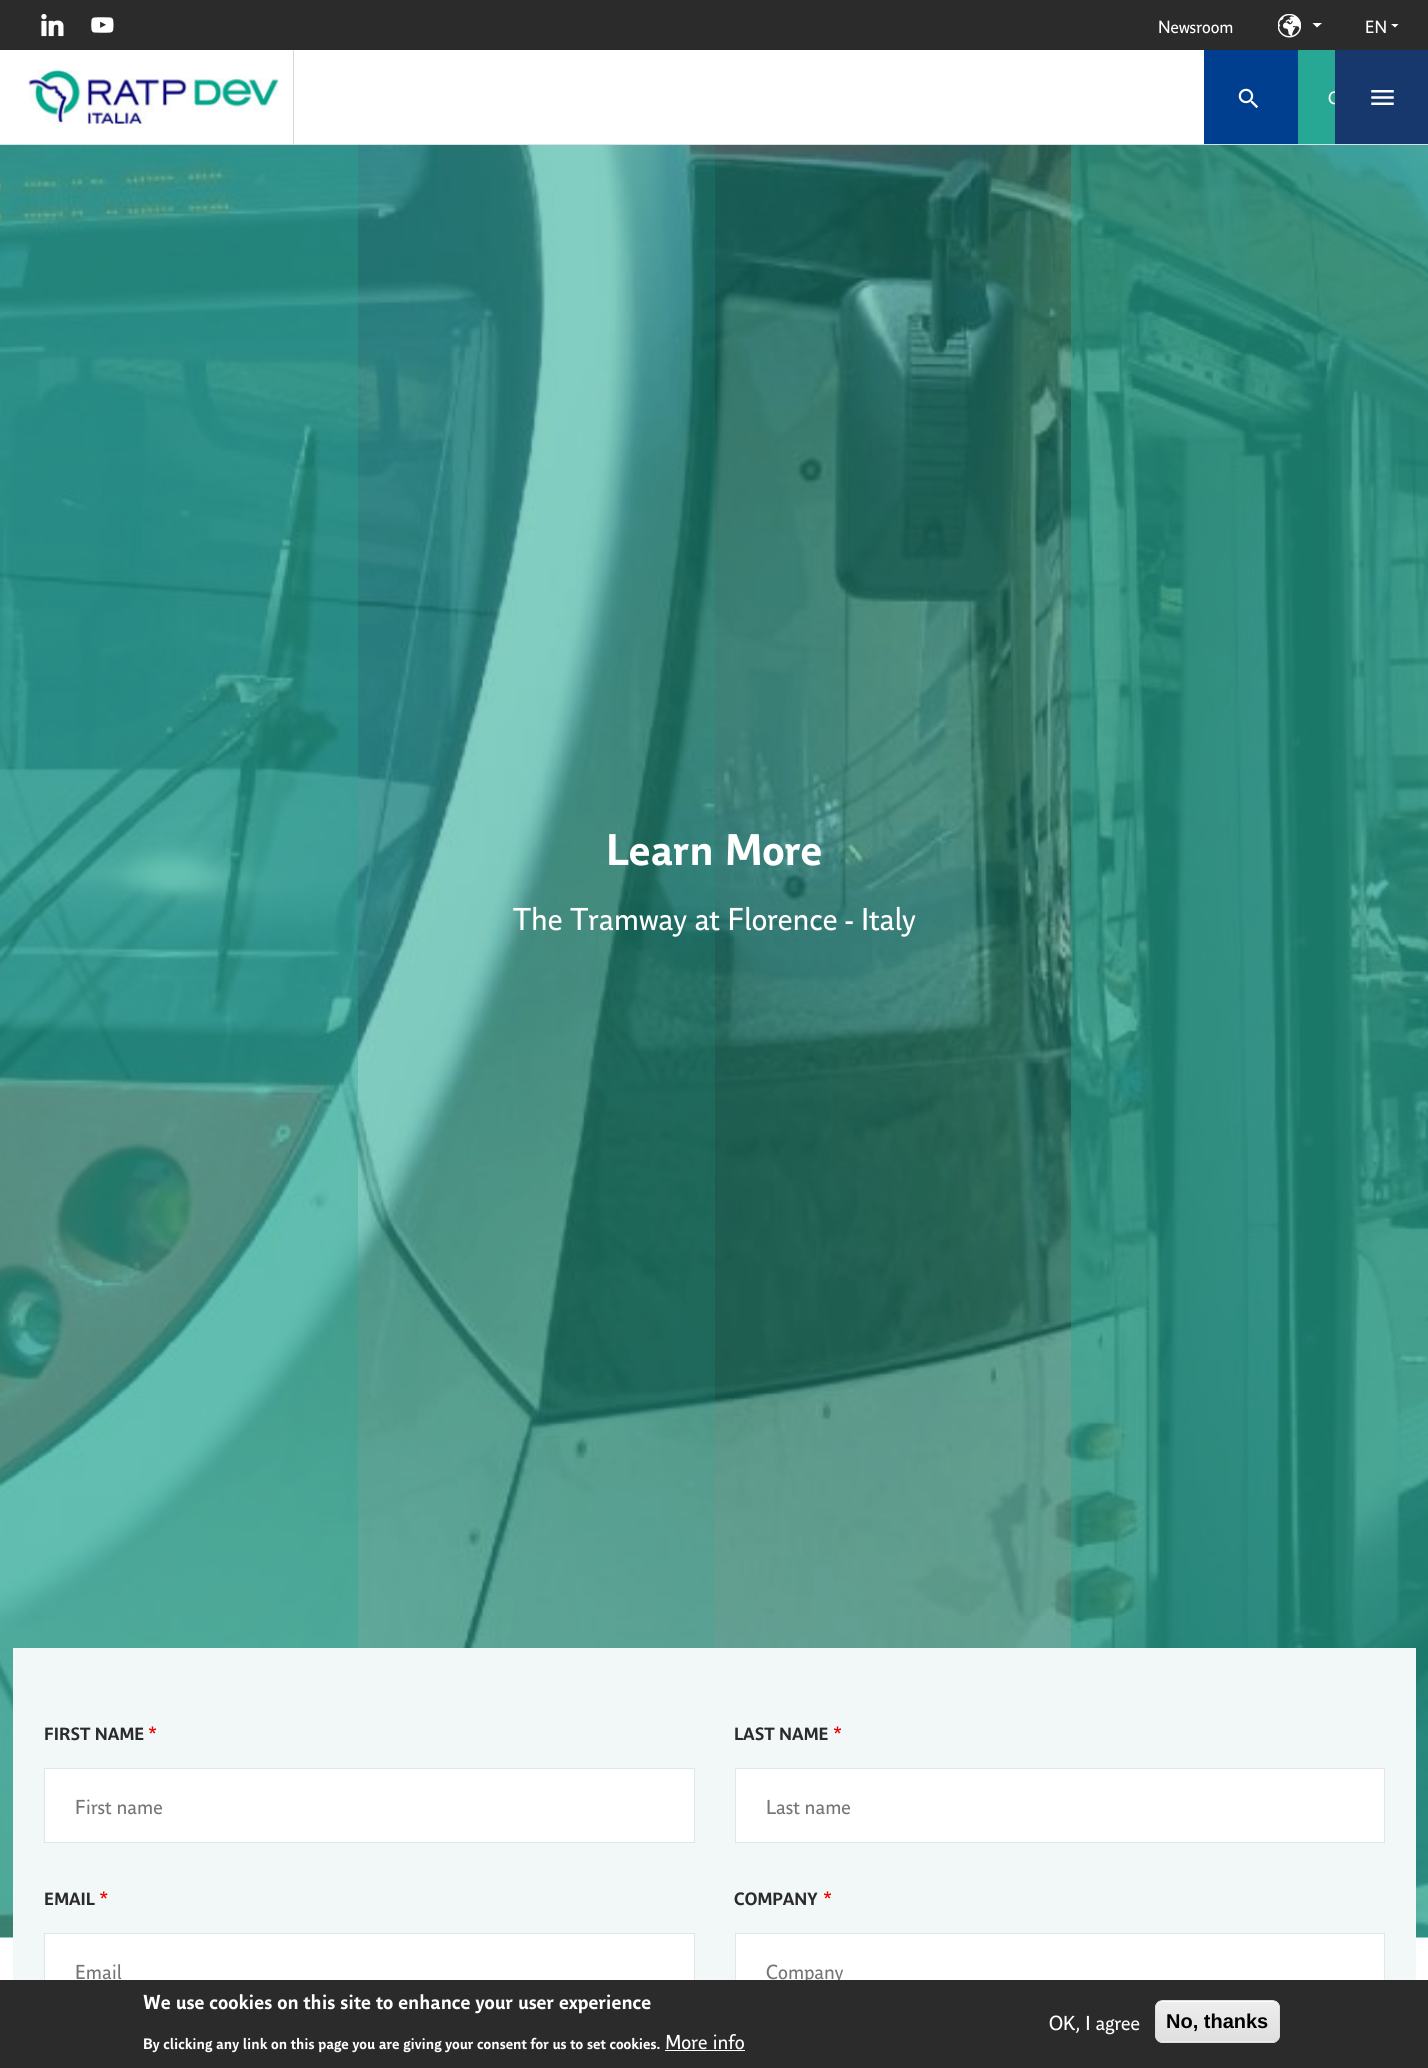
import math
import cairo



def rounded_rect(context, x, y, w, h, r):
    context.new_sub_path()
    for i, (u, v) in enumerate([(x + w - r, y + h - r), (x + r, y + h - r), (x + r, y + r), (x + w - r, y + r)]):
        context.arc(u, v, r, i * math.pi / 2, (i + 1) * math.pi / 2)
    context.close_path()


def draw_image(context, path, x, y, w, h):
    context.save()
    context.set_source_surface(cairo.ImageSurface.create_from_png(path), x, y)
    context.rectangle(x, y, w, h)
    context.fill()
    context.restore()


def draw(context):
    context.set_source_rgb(1, 1, 1)
    context.paint()
    context.set_source_rgb(43 / 255, 43 / 255, 43 / 255)
    context.rectangle(0, 0, 1428, 50)
    context.fill()
    draw_image(context, "images/1.png", 41, 13, 23, 24)
    draw_image(context, "images/2.png", 91, 17, 23, 16)
    draw_image(context, "images/3.png", 1278, 14, 23, 24)
    context.set_source_rgb(1, 1, 1)
    context.new_path()
    context.move_to(1312.5, 23)
    context.line_to(1322, 23)
    context.line_to(1317, 27.5)
    context.close_path()
    context.fill()
    context.new_path()
    context.move_to(1391, 24)
    context.line_to(1398.5, 24)
    context.line_to(1395, 27.5)
    context.close_path()
    context.fill()
    context.set_source_rgb(218 / 255, 224 / 255, 230 / 255)
    context.rectangle(0, 144, 1428, 1)
    context.fill()
    context.set_source_rgb(217 / 255, 217 / 255, 217 / 255)
    context.rectangle(293, 50, 1, 94)
    context.fill()
    draw_image(context, "images/4.png", 28, 69, 251, 55)
    context.set_source_rgb(0, 63 / 255, 144 / 255)
    context.rectangle(1204, 50, 94, 94)
    context.fill()
    draw_image(context, "images/5.png", 1238, 88, 21, 21)
    context.set_source_rgb(38 / 255, 168 / 255, 148 / 255)
    context.rectangle(1298, 50, 37, 94)
    context.fill()
    draw_image(context, "images/7.png", 0, 145, 1428, 1792)
    context.set_source_rgba(38 / 255, 168 / 255, 148 / 255, 0.5)
    context.rectangle(1071, 145, 357, 1793)
    context.fill()
    context.set_source_rgba(38 / 255, 168 / 255, 148 / 255, 0.12)
    context.rectangle(0, 145, 1071, 1793)
    context.fill()
    context.set_source_rgba(38 / 255, 168 / 255, 148 / 255, 0.5)
    context.rectangle(0, 145, 358, 1793)
    context.fill()
    context.set_source_rgba(38 / 255, 168 / 255, 148 / 255, 0.25)
    context.rectangle(358, 145, 357, 1503)
    context.fill()
    context.set_source_rgba(38 / 255, 168 / 255, 148 / 255, 0.12)
    context.rectangle(715, 145, 713, 1793)
    context.fill()
    context.set_source_rgb(242 / 255, 247 / 255, 247 / 255)
    context.rectangle(13, 1648, 1403, 332)
    context.fill()
    draw_image(context, "images/8.png", 149, 1726, 7, 8)
    context.set_source_rgb(1, 1, 1)
    context.rectangle(44.5, 1768.5, 650, 74)
    context.fill_preserve()
    context.set_source_rgb(225 / 255, 230 / 255, 230 / 255)
    context.set_line_width(1)
    context.stroke()
    draw_image(context, "images/8.png", 834, 1726, 7, 8)
    context.set_source_rgb(1, 1, 1)
    context.rectangle(735.5, 1768.5, 649, 74)
    context.fill_preserve()
    context.set_source_rgb(225 / 255, 230 / 255, 230 / 255)
    context.stroke()
    draw_image(context, "images/9.png", 100, 1891, 8, 8)
    context.set_source_rgb(1, 1, 1)
    context.rectangle(45, 1934, 649, 46)
    context.fill()
    context.rectangle(44.5, 1933.5, 650, 74)
    context.set_source_rgb(225 / 255, 230 / 255, 230 / 255)
    context.stroke()
    draw_image(context, "images/8.png", 824, 1891, 7, 8)
    context.set_source_rgb(1, 1, 1)
    context.rectangle(736, 1934, 648, 46)
    context.fill()
    context.rectangle(735.5, 1933.5, 649, 74)
    context.set_source_rgb(225 / 255, 230 / 255, 230 / 255)
    context.stroke()
    context.select_font_face("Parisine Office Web")
    context.set_font_size(17.5)
    context.set_source_rgb(1, 1, 1)
    context.move_to(1158, 33)
    context.show_text("Newsroom")
    context.move_to(1365, 33)
    context.show_text("EN")
    context.move_to(1328, 104)
    context.show_text("C")
    context.set_source_rgb(23 / 255, 56 / 255, 108 / 255)
    context.rectangle(1335, 50, 93, 94)
    context.fill()
    draw_image(context, "images/6.png", 1371, 90, 23, 15)
    context.select_font_face("Parisine Office Web", cairo.FontSlant.NORMAL, cairo.FontWeight.BOLD)
    context.set_font_size(43.75)
    context.set_source_rgb(1, 1, 1)
    context.move_to(606, 865)
    context.show_text("Learn More")
    context.select_font_face("Parisine Office Web")
    context.set_font_size(31.25)
    context.move_to(513, 930)
    context.show_text("The Tramway at Florence - Italy")
    context.select_font_face("Parisine Office Web", cairo.FontSlant.NORMAL, cairo.FontWeight.BOLD)
    context.set_font_size(17.5)
    context.set_source_rgb(43 / 255, 43 / 255, 43 / 255)
    context.move_to(44, 1740)
    context.show_text("FIRST NAME")
    context.select_font_face("Parisine Office Web")
    context.set_font_size(20)
    context.set_source_rgb(118 / 255, 118 / 255, 118 / 255)
    context.move_to(75, 1814)
    context.show_text("First name")
    context.select_font_face("Parisine Office Web", cairo.FontSlant.NORMAL, cairo.FontWeight.BOLD)
    context.set_font_size(17.5)
    context.set_source_rgb(43 / 255, 43 / 255, 43 / 255)
    context.move_to(734, 1740)
    context.show_text("LAST NAME")
    context.select_font_face("Parisine Office Web")
    context.set_font_size(20)
    context.set_source_rgb(118 / 255, 118 / 255, 118 / 255)
    context.move_to(766, 1814)
    context.show_text("Last name")
    context.select_font_face("Parisine Office Web", cairo.FontSlant.NORMAL, cairo.FontWeight.BOLD)
    context.set_font_size(17.5)
    context.set_source_rgb(43 / 255, 43 / 255, 43 / 255)
    context.move_to(44, 1905)
    context.show_text("EMAIL")
    context.select_font_face("Parisine Office Web")
    context.set_font_size(20)
    context.set_source_rgb(118 / 255, 118 / 255, 118 / 255)
    context.move_to(75, 1979)
    context.show_text("Email")
    context.select_font_face("Parisine Office Web", cairo.FontSlant.NORMAL, cairo.FontWeight.BOLD)
    context.set_font_size(17.5)
    context.set_source_rgb(43 / 255, 43 / 255, 43 / 255)
    context.move_to(734, 1905)
    context.show_text("COMPANY")
    context.select_font_face("Parisine Office Web")
    context.set_font_size(20)
    context.set_source_rgb(118 / 255, 118 / 255, 118 / 255)
    context.move_to(766, 1979)
    context.show_text("Company")
    context.set_source_rgb(43 / 255, 43 / 255, 43 / 255)
    context.rectangle(0, 1980, 1428, 88)
    context.fill()
    context.select_font_face("Parisine Office Web", cairo.FontSlant.NORMAL, cairo.FontWeight.BOLD)
    context.set_source_rgb(1, 1, 1)
    context.move_to(143, 2009)
    context.show_text("We use cookies on this site to enhance your user experience")
    context.set_font_size(15)
    context.move_to(143, 2049)
    context.show_text("By clicking any link on this page you are giving your consent for us to set cookies.")
    context.select_font_face("Parisine Office Web")
    context.set_font_size(20)
    context.move_to(665, 2049)
    context.show_text("More info")
    context.rectangle(665, 2050, 80, 1)
    context.fill()
    context.move_to(1049, 2030)
    context.show_text("OK, I agree")
    context.save()
    rounded_rect(context, 1155, 2000, 125, 43, 8)
    context.clip()
    gradient = cairo.LinearGradient(1218, 2001, 1218, 2041)
    gradient.add_color_stop_rgba(0.05, 237 / 255, 237 / 255, 237 / 255, 1)
    gradient.add_color_stop_rgba(1, 223 / 255, 223 / 255, 223 / 255, 1)
    context.set_source(gradient)
    context.rectangle(1155, 2001, 125, 40)
    context.fill()
    gradient = cairo.LinearGradient(1218, 2041, 1218, 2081)
    gradient.add_color_stop_rgba(0.05, 237 / 255, 237 / 255, 237 / 255, 1)
    gradient.add_color_stop_rgba(1, 223 / 255, 223 / 255, 223 / 255, 1)
    context.set_source(gradient)
    context.rectangle(1155, 2041, 125, 2)
    context.fill()
    context.restore()
    context.new_path()
    context.move_to(1162, 2002)
    context.line_to(1272, 2002)
    context.curve_to(1276, 2002, 1279, 2005, 1279, 2009)
    context.line_to(1279, 2007)
    context.curve_to(1279, 2004, 1276, 2001, 1273, 2001)
    context.line_to(1162, 2001)
    context.curve_to(1159, 2001, 1156, 2004, 1156, 2007)
    context.line_to(1156, 2009)
    context.curve_to(1156, 2005, 1159, 2002, 1162, 2002)
    context.close_path()
    context.fill()
    rounded_rect(context, 1155.5, 2000.5, 124, 42, 7.5)
    context.set_source_rgb(220 / 255, 220 / 255, 220 / 255)
    context.stroke()
    context.select_font_face("Liberation Sans", cairo.FontSlant.NORMAL, cairo.FontWeight.BOLD)
    context.set_source_rgb(0, 0, 0)
    context.move_to(1166, 2028)
    context.show_text("No, thanks")


surface = cairo.ImageSurface(cairo.Format.RGB24, 1428, 2068)
context = cairo.Context(surface)
options = cairo.FontOptions()
options.set_hint_metrics(cairo.HintMetrics.OFF)
options.set_hint_style(cairo.HintStyle.NONE)
context.set_font_options(options)
context.set_miter_limit(4)
draw(context)
surface.write_to_png("out.png")
